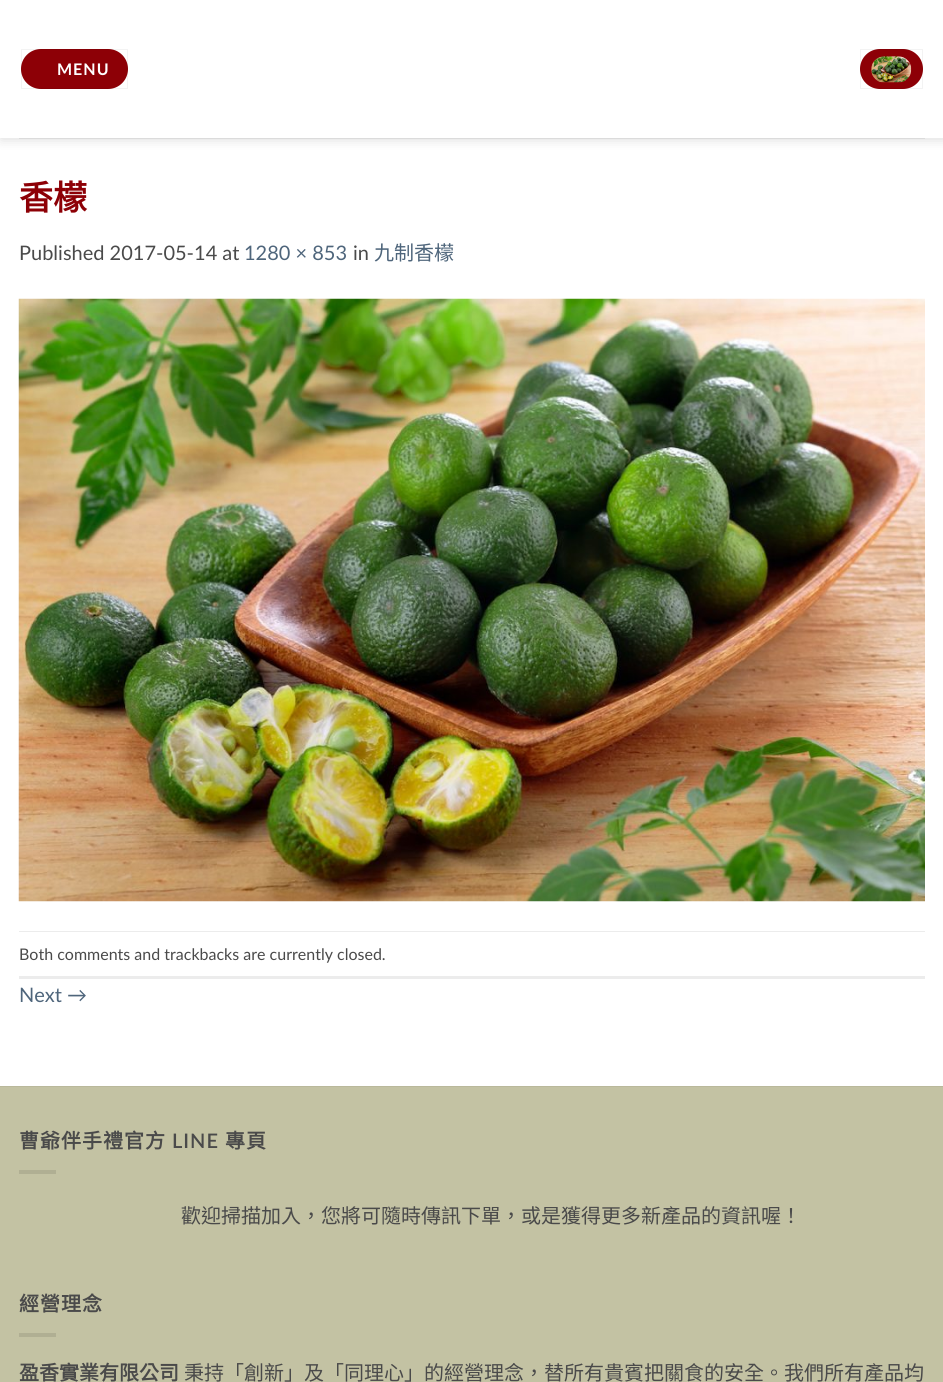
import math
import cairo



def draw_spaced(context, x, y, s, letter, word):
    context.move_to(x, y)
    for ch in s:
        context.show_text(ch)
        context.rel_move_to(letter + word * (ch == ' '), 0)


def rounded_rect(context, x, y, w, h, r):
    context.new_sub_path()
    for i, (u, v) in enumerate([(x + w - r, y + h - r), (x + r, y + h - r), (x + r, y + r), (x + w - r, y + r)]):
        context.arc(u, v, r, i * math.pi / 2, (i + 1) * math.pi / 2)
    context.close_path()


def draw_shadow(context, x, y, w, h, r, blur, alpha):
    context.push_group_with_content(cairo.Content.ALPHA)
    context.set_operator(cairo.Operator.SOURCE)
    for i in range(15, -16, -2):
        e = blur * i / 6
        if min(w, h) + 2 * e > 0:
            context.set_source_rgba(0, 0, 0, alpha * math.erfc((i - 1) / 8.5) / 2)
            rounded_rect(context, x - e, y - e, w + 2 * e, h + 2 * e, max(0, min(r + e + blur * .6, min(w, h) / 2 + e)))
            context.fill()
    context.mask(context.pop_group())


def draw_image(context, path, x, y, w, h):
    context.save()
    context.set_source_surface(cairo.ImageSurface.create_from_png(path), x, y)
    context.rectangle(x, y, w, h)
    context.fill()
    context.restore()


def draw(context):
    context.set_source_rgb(1, 1, 1)
    context.paint()
    context.save()
    context.set_fill_rule(cairo.FillRule.EVEN_ODD)
    context.new_path()
    context.move_to(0, 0)
    context.line_to(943, 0)
    context.line_to(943, 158)
    context.line_to(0, 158)
    context.close_path()
    context.move_to(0, 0)
    context.line_to(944, 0)
    context.line_to(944, 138)
    context.line_to(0, 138)
    context.close_path()
    context.clip()
    context.set_source_rgb(0, 0, 0)
    draw_shadow(context, 1, 1, 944, 138, 0, 6, 0.15)
    context.restore()
    context.set_source_rgb(141 / 255, 0, 6 / 255)
    rounded_rect(context, 21, 49, 107, 40, 20)
    context.fill()
    context.rectangle(21.5, 49.5, 106, 39)
    context.set_source_rgba(0, 0, 0, 0.05)
    context.set_line_width(1)
    context.stroke()
    context.set_source_rgb(141 / 255, 0, 6 / 255)
    rounded_rect(context, 860, 49, 63, 40, 20)
    context.fill()
    context.rectangle(860.5, 49.5, 62, 39)
    context.set_source_rgba(0, 0, 0, 0.05)
    context.stroke()
    draw_image(context, "images/1.png", 871, 56, 41, 27)
    context.set_source_rgb(219 / 255, 219 / 255, 219 / 255)
    context.rectangle(19, 138, 906, 1)
    context.fill()
    draw_image(context, "images/2.png", 18, 298, 907, 604)
    context.set_source_rgb(236 / 255, 236 / 255, 236 / 255)
    context.rectangle(19, 931, 906, 1)
    context.fill()
    context.rectangle(19, 976, 906, 3)
    context.fill()
    context.set_source_rgb(195 / 255, 194 / 255, 163 / 255)
    context.rectangle(0, 1087, 943, 295)
    context.fill()
    context.set_source_rgb(185 / 255, 184 / 255, 155 / 255)
    context.rectangle(0, 1086, 943, 1)
    context.fill()
    context.set_source_rgb(176 / 255, 175 / 255, 147 / 255)
    context.rectangle(19, 1170, 37, 4)
    context.fill()
    context.rectangle(19, 1333, 37, 4)
    context.fill()
    context.select_font_face("Lato", cairo.FontSlant.NORMAL, cairo.FontWeight.BOLD)
    context.set_font_size(16)
    context.set_source_rgb(1, 1, 1)
    draw_spaced(context, 57, 75, "MENU", 1, 0)
    context.select_font_face("Noto Sans CJK TC", cairo.FontSlant.NORMAL, cairo.FontWeight.BOLD)
    context.set_font_size(34)
    context.set_source_rgb(141 / 255, 0, 6 / 255)
    context.move_to(19, 210)
    context.show_text("香檬")
    context.select_font_face("Lato")
    context.set_font_size(20)
    context.set_source_rgb(74 / 255, 74 / 255, 74 / 255)
    context.move_to(19, 260)
    context.show_text("Published 2017-05-14 at")
    context.set_source_rgb(78 / 255, 101 / 255, 123 / 255)
    context.move_to(244, 260)
    context.show_text("1280 × 853")
    context.set_source_rgb(74 / 255, 74 / 255, 74 / 255)
    context.move_to(353, 260)
    context.show_text("in")
    context.select_font_face("Noto Sans CJK TC")
    context.set_source_rgb(78 / 255, 101 / 255, 123 / 255)
    context.move_to(374, 260)
    context.show_text("九制香檬")
    context.select_font_face("Lato")
    context.set_font_size(16)
    context.set_source_rgb(74 / 255, 74 / 255, 74 / 255)
    context.move_to(19, 960)
    context.show_text("Both comments and trackbacks are currently closed.")
    context.set_font_size(20)
    context.set_source_rgb(78 / 255, 101 / 255, 123 / 255)
    context.move_to(19, 1002)
    context.show_text("Next →")
    context.select_font_face("Noto Sans CJK TC", cairo.FontSlant.NORMAL, cairo.FontWeight.BOLD)
    context.set_source_rgb(74 / 255, 74 / 255, 74 / 255)
    draw_spaced(context, 19, 1148, "曹爺伴手禮官方", 1, 0)
    context.select_font_face("Lato SemiBold")
    draw_spaced(context, 172, 1148, "LINE", 1, 0)
    context.select_font_face("Noto Sans CJK TC", cairo.FontSlant.NORMAL, cairo.FontWeight.BOLD)
    draw_spaced(context, 225, 1148, "專頁", 1, 0)
    context.select_font_face("Noto Sans CJK TC")
    context.move_to(181, 1223)
    context.show_text("歡迎掃描加入，您將可隨時傳訊下單，或是獲得更多新產品的資訊喔！")
    context.select_font_face("Noto Sans CJK TC", cairo.FontSlant.NORMAL, cairo.FontWeight.BOLD)
    draw_spaced(context, 19, 1311, "經營理念", 1, 0)
    context.move_to(19, 1380)
    context.show_text("盈香實業有限公司")
    context.select_font_face("Noto Sans CJK TC")
    context.move_to(184, 1380)
    context.show_text("秉持「創新」及「同理心」的經營理念，替所有貴賓把關食的安全。我們所有產品均")


surface = cairo.ImageSurface(cairo.Format.RGB24, 943, 1382)
context = cairo.Context(surface)
options = cairo.FontOptions()
options.set_hint_metrics(cairo.HintMetrics.OFF)
options.set_hint_style(cairo.HintStyle.NONE)
context.set_font_options(options)
context.set_miter_limit(4)
draw(context)
surface.write_to_png("out.png")
